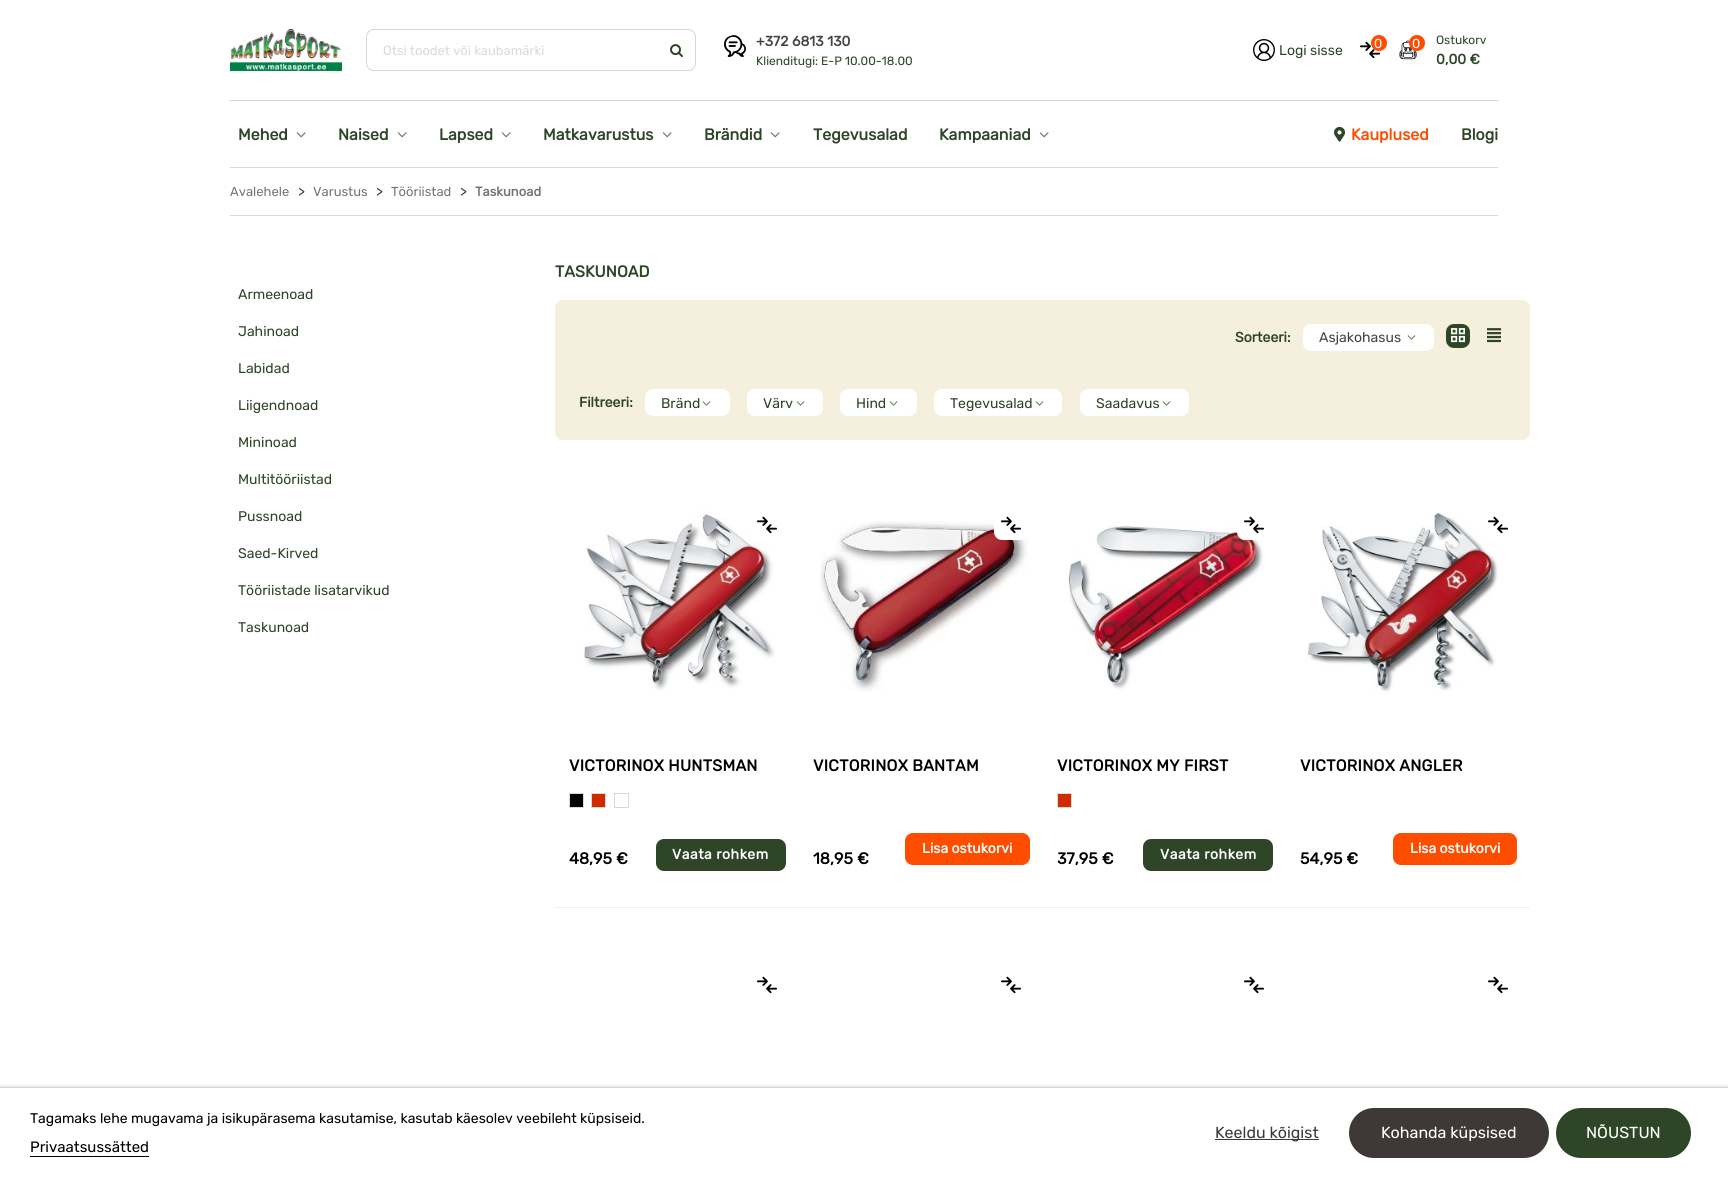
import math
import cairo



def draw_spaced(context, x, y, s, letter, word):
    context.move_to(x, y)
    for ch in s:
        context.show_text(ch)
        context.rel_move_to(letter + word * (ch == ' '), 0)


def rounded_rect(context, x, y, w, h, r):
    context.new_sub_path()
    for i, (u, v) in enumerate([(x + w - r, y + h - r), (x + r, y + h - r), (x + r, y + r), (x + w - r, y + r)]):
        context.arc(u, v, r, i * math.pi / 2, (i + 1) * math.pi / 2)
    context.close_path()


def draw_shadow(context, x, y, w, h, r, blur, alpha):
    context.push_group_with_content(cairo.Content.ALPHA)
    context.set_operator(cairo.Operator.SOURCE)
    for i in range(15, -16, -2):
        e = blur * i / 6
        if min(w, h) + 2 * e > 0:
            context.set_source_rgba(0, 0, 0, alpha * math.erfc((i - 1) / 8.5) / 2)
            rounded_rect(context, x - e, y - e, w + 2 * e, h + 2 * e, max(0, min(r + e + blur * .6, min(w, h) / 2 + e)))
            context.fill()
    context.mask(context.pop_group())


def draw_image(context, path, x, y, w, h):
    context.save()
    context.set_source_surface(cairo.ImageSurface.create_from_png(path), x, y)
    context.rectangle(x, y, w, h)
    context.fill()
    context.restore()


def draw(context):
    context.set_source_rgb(1, 1, 1)
    context.paint()
    draw_image(context, "images/1.png", 230, 29, 112, 42)
    rounded_rect(context, 366.5, 29.5, 329, 41, 7.5)
    context.set_source_rgb(213 / 255, 213 / 255, 213 / 255)
    context.set_line_width(1)
    context.stroke()
    draw_image(context, "images/2.png", 670, 44, 13, 14)
    draw_image(context, "images/3.png", 724, 35, 22, 22)
    draw_image(context, "images/4.png", 1253, 39, 22, 22)
    draw_image(context, "images/5.png", 1360, 41, 20, 18)
    context.set_source_rgb(1, 77 / 255, 0)
    context.arc(1379, 43, 8, 0, 2 * math.pi)
    context.fill()
    draw_image(context, "images/6.png", 1399, 40, 18, 20)
    context.arc(1417, 43, 8, 0, 2 * math.pi)
    context.fill()
    context.set_source_rgb(213 / 255, 213 / 255, 213 / 255)
    context.rectangle(230, 100, 1268, 1)
    context.fill()
    draw_image(context, "images/7.png", 296, 132, 10, 6)
    draw_image(context, "images/7.png", 397, 132, 10, 6)
    draw_image(context, "images/7.png", 501, 132, 10, 6)
    draw_image(context, "images/7.png", 662, 132, 10, 6)
    draw_image(context, "images/7.png", 770, 132, 10, 6)
    draw_image(context, "images/7.png", 1039, 132, 10, 6)
    draw_image(context, "images/8.png", 1334, 126, 12, 16)
    context.set_source_rgb(219 / 255, 219 / 255, 219 / 255)
    context.rectangle(230, 167, 1268, 1)
    context.fill()
    context.rectangle(230, 215, 1268, 1)
    context.fill()
    context.set_source_rgb(245 / 255, 239 / 255, 221 / 255)
    rounded_rect(context, 555, 300, 975, 140, 8)
    context.fill()
    context.set_source_rgb(1, 1, 1)
    rounded_rect(context, 1303, 324, 131, 27, 8)
    context.fill()
    draw_image(context, "images/9.png", 1407, 335, 9, 5)
    context.set_source_rgb(46 / 255, 70 / 255, 39 / 255)
    rounded_rect(context, 1446, 324, 24, 24, 8)
    context.fill()
    draw_image(context, "images/10.png", 1451, 328, 14, 15)
    draw_image(context, "images/11.png", 1487, 328, 14, 15)
    context.set_source_rgb(1, 1, 1)
    rounded_rect(context, 645, 389, 85, 27, 8)
    context.fill()
    draw_image(context, "images/9.png", 702, 401, 9, 5)
    rounded_rect(context, 747, 389, 76, 27, 8)
    context.fill()
    draw_image(context, "images/9.png", 796, 401, 9, 5)
    rounded_rect(context, 840, 389, 77, 27, 8)
    context.fill()
    draw_image(context, "images/9.png", 889, 401, 9, 5)
    rounded_rect(context, 934, 389, 128, 27, 8)
    context.fill()
    draw_image(context, "images/9.png", 1035, 401, 9, 5)
    rounded_rect(context, 1080, 389, 109, 27, 8)
    context.fill()
    draw_image(context, "images/9.png", 1162, 401, 9, 5)
    draw_image(context, "images/12.png", 583, 511, 192, 179)
    rounded_rect(context, 750, 510, 34, 30, 8)
    context.fill()
    draw_image(context, "images/5.png", 757, 516, 20, 18)
    context.set_source_rgb(0, 0, 0)
    context.rectangle(569.5, 793.5, 14, 14)
    context.fill_preserve()
    context.set_source_rgb(217 / 255, 217 / 255, 217 / 255)
    context.stroke()
    context.set_source_rgb(207 / 255, 43 / 255, 0)
    context.rectangle(591.5, 793.5, 14, 14)
    context.fill_preserve()
    context.set_source_rgb(217 / 255, 217 / 255, 217 / 255)
    context.stroke()
    context.rectangle(614.5, 793.5, 14, 14)
    context.stroke()
    context.set_source_rgb(46 / 255, 70 / 255, 39 / 255)
    rounded_rect(context, 656, 839, 130, 32, 8)
    context.fill()
    draw_image(context, "images/13.png", 820, 521, 209, 171)
    context.set_source_rgb(1, 1, 1)
    rounded_rect(context, 994, 510, 34, 30, 8)
    context.fill()
    draw_image(context, "images/5.png", 1001, 516, 20, 18)
    context.set_source_rgb(1, 77 / 255, 0)
    rounded_rect(context, 905.5, 833.5, 124, 31, 7.5)
    context.fill_preserve()
    context.stroke()
    draw_image(context, "images/14.png", 1068, 525, 196, 165)
    context.set_source_rgb(1, 1, 1)
    rounded_rect(context, 1237, 510, 34, 30, 8)
    context.fill()
    draw_image(context, "images/5.png", 1244, 516, 20, 18)
    context.set_source_rgb(207 / 255, 43 / 255, 0)
    context.rectangle(1057.5, 793.5, 14, 14)
    context.fill_preserve()
    context.set_source_rgb(217 / 255, 217 / 255, 217 / 255)
    context.stroke()
    context.set_source_rgb(46 / 255, 70 / 255, 39 / 255)
    rounded_rect(context, 1143, 839, 130, 32, 8)
    context.fill()
    draw_image(context, "images/15.png", 1307, 512, 192, 180)
    draw_image(context, "images/5.png", 1488, 516, 20, 18)
    context.set_source_rgb(1, 77 / 255, 0)
    rounded_rect(context, 1393.5, 833.5, 123, 31, 7.5)
    context.fill_preserve()
    context.stroke()
    context.set_source_rgb(242 / 255, 242 / 255, 242 / 255)
    context.rectangle(555, 907, 975, 1)
    context.fill()
    draw_image(context, "images/5.png", 757, 976, 20, 18)
    draw_image(context, "images/5.png", 1001, 976, 20, 18)
    draw_image(context, "images/5.png", 1244, 976, 20, 18)
    draw_image(context, "images/5.png", 1488, 976, 20, 18)
    context.save()
    context.rectangle(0, 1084, 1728, 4)
    context.clip()
    context.set_source_rgb(112 / 255, 112 / 255, 112 / 255)
    draw_shadow(context, 0, 1089, 1728, 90, 0, 2.5, 1)
    context.restore()
    context.set_source_rgb(0, 0, 0)
    context.rectangle(30, 1156, 119, 1)
    context.fill()
    context.set_source_rgb(62 / 255, 57 / 255, 54 / 255)
    context.rectangle(1215, 1139, 104, 1)
    context.fill()
    rounded_rect(context, 1349, 1108, 200, 50, 25)
    context.fill()
    context.set_source_rgb(46 / 255, 70 / 255, 39 / 255)
    rounded_rect(context, 1556, 1108, 135, 50, 25)
    context.fill()
    context.select_font_face("Rubik")
    context.set_font_size(13)
    context.set_source_rgb(218 / 255, 218 / 255, 218 / 255)
    context.move_to(383, 55)
    context.show_text("Otsi toodet või kaubamärki")
    context.select_font_face("Rubik", cairo.FontSlant.NORMAL, cairo.FontWeight.BOLD)
    context.set_font_size(14)
    context.set_source_rgb(68 / 255, 68 / 255, 68 / 255)
    context.move_to(756, 46)
    context.show_text("+372 6813 130")
    context.select_font_face("Rubik")
    context.set_font_size(12)
    context.set_source_rgb(46 / 255, 70 / 255, 39 / 255)
    context.move_to(756, 65)
    context.show_text("Klienditugi: E-P 10.00-18.00")
    context.set_font_size(14)
    context.move_to(1279, 55)
    context.show_text("Logi sisse")
    context.set_font_size(13)
    context.set_source_rgb(1, 1, 1)
    context.move_to(1374, 48)
    context.show_text("0")
    context.move_to(1412, 48)
    context.show_text("0")
    context.set_font_size(12)
    context.set_source_rgb(46 / 255, 70 / 255, 39 / 255)
    context.move_to(1436, 44)
    context.show_text("Ostukorv")
    context.select_font_face("Rubik", cairo.FontSlant.NORMAL, cairo.FontWeight.BOLD)
    context.set_font_size(14)
    context.move_to(1436, 64)
    context.show_text("0,00 €")
    context.set_font_size(16)
    context.move_to(238, 140)
    context.show_text("Mehed")
    context.move_to(338, 140)
    context.show_text("Naised")
    context.move_to(439, 140)
    context.show_text("Lapsed")
    context.move_to(543, 140)
    context.show_text("Matkavarustus")
    context.move_to(704, 140)
    context.show_text("Brändid")
    context.move_to(813, 140)
    context.show_text("Tegevusalad")
    context.move_to(939, 140)
    context.show_text("Kampaaniad")
    context.set_source_rgb(1, 77 / 255, 0)
    context.move_to(1351, 140)
    context.show_text("Kauplused")
    context.set_source_rgb(46 / 255, 70 / 255, 39 / 255)
    context.move_to(1461, 140)
    context.show_text("Blogi")
    context.select_font_face("Rubik")
    context.set_font_size(13)
    context.set_source_rgb(117 / 255, 117 / 255, 117 / 255)
    context.move_to(230, 196)
    context.show_text("Avalehele")
    context.set_font_size(14)
    context.set_source_rgb(46 / 255, 70 / 255, 39 / 255)
    context.move_to(298, 196)
    context.show_text(">")
    context.set_font_size(13)
    context.set_source_rgb(117 / 255, 117 / 255, 117 / 255)
    context.move_to(313, 196)
    context.show_text("Varustus")
    context.set_font_size(14)
    context.set_source_rgb(46 / 255, 70 / 255, 39 / 255)
    context.move_to(376, 196)
    context.show_text(">")
    context.set_font_size(13)
    context.set_source_rgb(117 / 255, 117 / 255, 117 / 255)
    context.move_to(391, 196)
    context.show_text("Tööriistad")
    context.set_font_size(14)
    context.set_source_rgb(46 / 255, 70 / 255, 39 / 255)
    context.move_to(460, 196)
    context.show_text(">")
    context.select_font_face("Rubik", cairo.FontSlant.NORMAL, cairo.FontWeight.BOLD)
    context.set_font_size(13)
    context.set_source_rgb(117 / 255, 117 / 255, 117 / 255)
    context.move_to(475, 196)
    context.show_text("Taskunoad")
    context.select_font_face("Rubik")
    context.set_font_size(14)
    context.set_source_rgb(46 / 255, 70 / 255, 39 / 255)
    context.move_to(238, 299)
    context.show_text("Armeenoad")
    context.move_to(238, 336)
    context.show_text("Jahinoad")
    context.move_to(238, 373)
    context.show_text("Labidad")
    context.move_to(238, 410)
    context.show_text("Liigendnoad")
    context.move_to(238, 447)
    context.show_text("Mininoad")
    context.move_to(238, 484)
    context.show_text("Multitööriistad")
    context.move_to(238, 521)
    context.show_text("Pussnoad")
    context.move_to(238, 558)
    context.show_text("Saed-Kirved")
    context.move_to(238, 595)
    context.show_text("Tööriistade lisatarvikud")
    context.move_to(238, 632)
    context.show_text("Taskunoad")
    context.select_font_face("Rubik", cairo.FontSlant.NORMAL, cairo.FontWeight.BOLD)
    context.set_font_size(16)
    context.move_to(555, 277)
    context.show_text("TASKUNOAD")
    context.set_font_size(14)
    context.move_to(1235, 342)
    context.show_text("Sorteeri:")
    context.select_font_face("Rubik")
    context.set_source_rgb(68 / 255, 68 / 255, 68 / 255)
    context.move_to(1319, 342)
    context.show_text("Asjakohasus")
    context.select_font_face("Rubik", cairo.FontSlant.NORMAL, cairo.FontWeight.BOLD)
    context.set_source_rgb(46 / 255, 70 / 255, 39 / 255)
    context.move_to(579, 407)
    context.show_text("Filtreeri:")
    context.select_font_face("Rubik")
    context.move_to(661, 408)
    context.show_text("Bränd")
    context.move_to(763, 408)
    context.show_text("Värv")
    context.move_to(856, 408)
    context.show_text("Hind")
    context.move_to(950, 408)
    context.show_text("Tegevusalad")
    context.move_to(1096, 408)
    context.show_text("Saadavus")
    context.select_font_face("Rubik", cairo.FontSlant.NORMAL, cairo.FontWeight.BOLD)
    context.set_font_size(16)
    context.set_source_rgb(0, 0, 0)
    draw_spaced(context, 569, 771, "VICTORINOX HUNTSMAN", 0.25, 0)
    context.move_to(569, 864)
    context.show_text("48,95 €")
    context.set_font_size(14)
    context.set_source_rgb(1, 1, 1)
    draw_spaced(context, 672, 859, "Vaata rohkem", 0.5, 0)
    context.set_font_size(16)
    context.set_source_rgb(0, 0, 0)
    draw_spaced(context, 813, 771, "VICTORINOX BANTAM", 0.25, 0)
    context.set_font_size(14)
    context.set_source_rgb(1, 1, 1)
    context.move_to(922, 853)
    context.show_text("Lisa ostukorvi")
    context.set_font_size(16)
    context.set_source_rgb(0, 0, 0)
    context.move_to(813, 864)
    context.show_text("18,95 €")
    draw_spaced(context, 1057, 771, "VICTORINOX MY FIRST", 0.25, 0)
    context.move_to(1057, 864)
    context.show_text("37,95 €")
    context.set_font_size(14)
    context.set_source_rgb(1, 1, 1)
    draw_spaced(context, 1160, 859, "Vaata rohkem", 0.5, 0)
    context.set_font_size(16)
    context.set_source_rgb(0, 0, 0)
    draw_spaced(context, 1300, 771, "VICTORINOX ANGLER", 0.25, 0)
    context.set_font_size(14)
    context.set_source_rgb(1, 1, 1)
    context.move_to(1410, 853)
    context.show_text("Lisa ostukorvi")
    context.set_font_size(16)
    context.set_source_rgb(0, 0, 0)
    context.move_to(1300, 864)
    context.show_text("54,95 €")
    context.select_font_face("Rubik")
    context.set_font_size(14)
    context.move_to(30, 1123)
    context.show_text("Tagamaks lehe mugavama ja isikupärasema kasutamise, kasutab käesolev veebileht küpsiseid.")
    context.set_font_size(15)
    context.move_to(30, 1152)
    context.show_text("Privaatsussätted")
    context.set_font_size(16)
    context.set_source_rgb(62 / 255, 57 / 255, 54 / 255)
    context.move_to(1215, 1138)
    context.show_text("Keeldu kõigist")
    context.set_source_rgb(1, 1, 1)
    context.move_to(1381, 1138)
    context.show_text("Kohanda küpsised")
    context.move_to(1586, 1138)
    context.show_text("NÕUSTUN")


surface = cairo.ImageSurface(cairo.Format.RGB24, 1728, 1178)
context = cairo.Context(surface)
options = cairo.FontOptions()
options.set_hint_metrics(cairo.HintMetrics.OFF)
options.set_hint_style(cairo.HintStyle.NONE)
context.set_font_options(options)
context.set_miter_limit(4)
draw(context)
surface.write_to_png("out.png")
